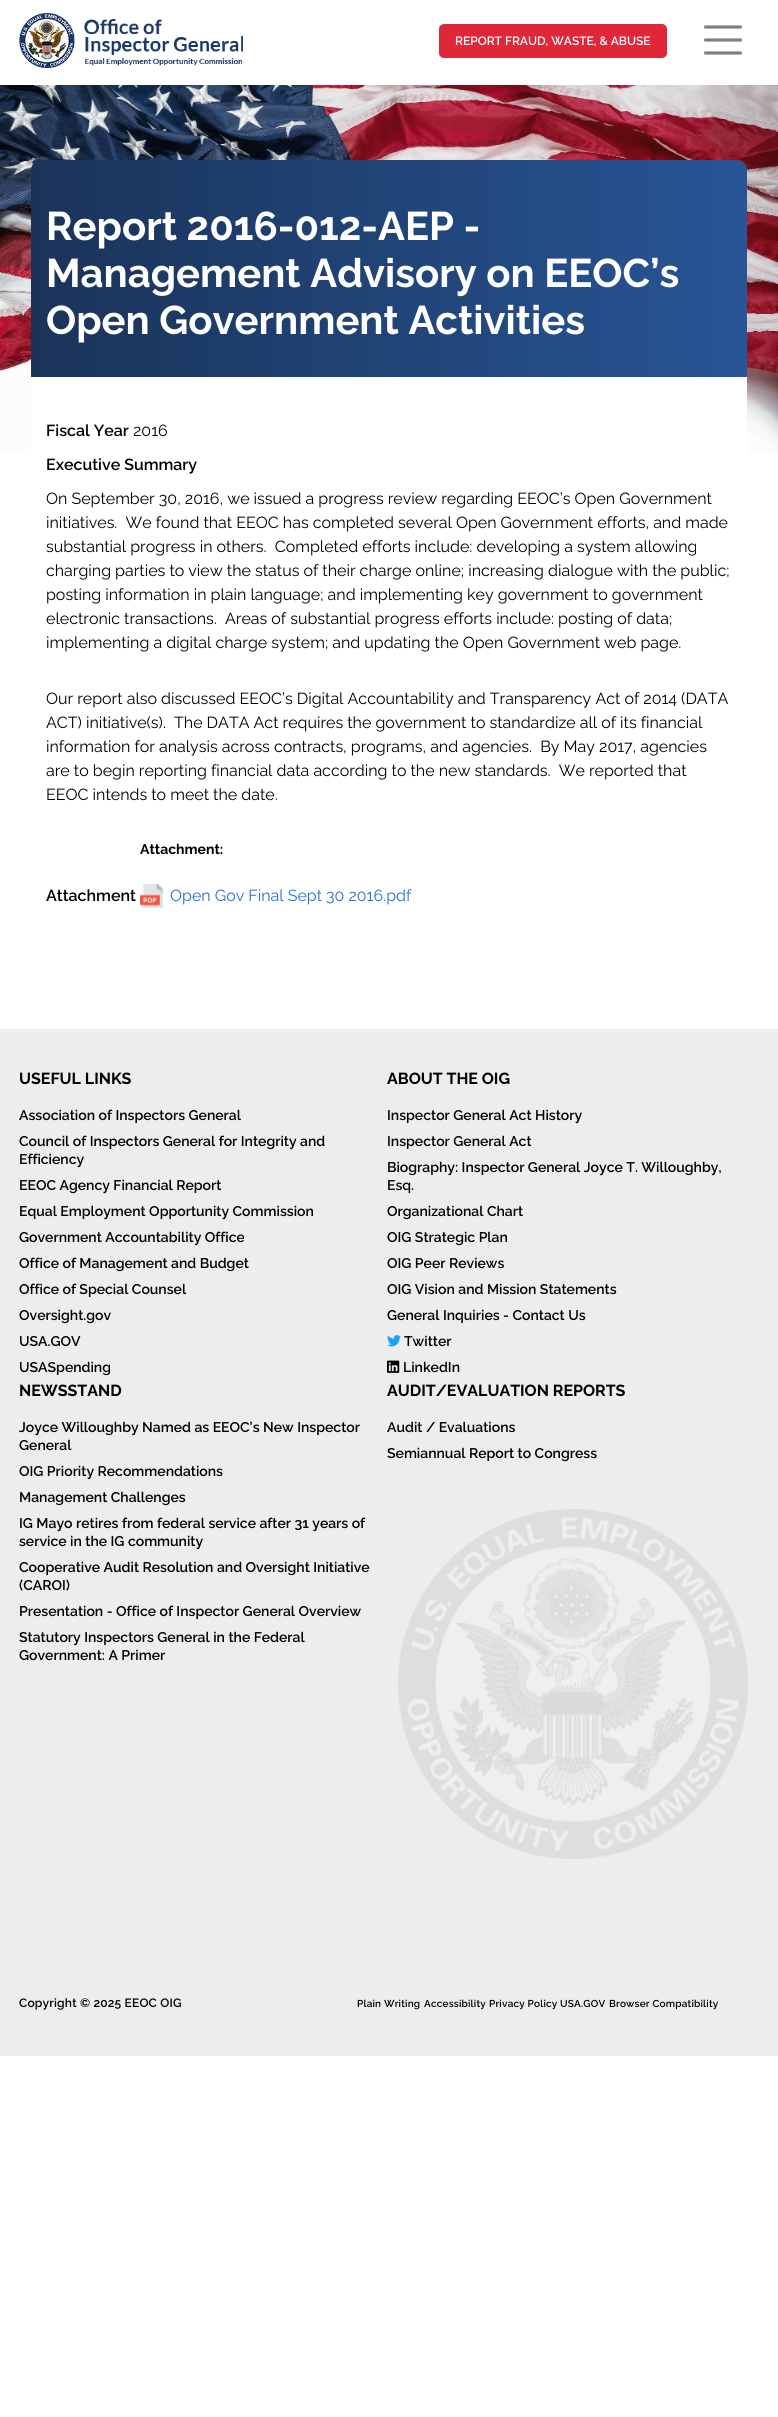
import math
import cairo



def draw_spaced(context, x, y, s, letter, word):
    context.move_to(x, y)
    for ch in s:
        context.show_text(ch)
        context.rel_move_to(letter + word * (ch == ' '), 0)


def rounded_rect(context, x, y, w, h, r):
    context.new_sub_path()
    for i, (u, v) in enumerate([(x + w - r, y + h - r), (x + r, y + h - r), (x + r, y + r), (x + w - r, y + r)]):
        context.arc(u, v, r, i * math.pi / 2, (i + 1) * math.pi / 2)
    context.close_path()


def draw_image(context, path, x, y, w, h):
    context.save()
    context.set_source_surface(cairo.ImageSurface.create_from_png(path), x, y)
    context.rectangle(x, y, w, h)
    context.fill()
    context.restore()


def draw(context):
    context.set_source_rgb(1, 1, 1)
    context.paint()
    draw_image(context, "images/1.png", 19, 13, 224, 55)
    context.set_source_rgb(222 / 255, 40 / 255, 57 / 255)
    rounded_rect(context, 439, 24, 228, 34, 5)
    context.fill()
    context.new_path()
    context.move_to(705.5, 27)
    context.line_to(740.5, 27)
    context.move_to(705.5, 40)
    context.line_to(740.5, 40)
    context.move_to(705.5, 53)
    context.line_to(740.5, 53)
    context.set_source_rgb(128 / 255, 128 / 255, 128 / 255)
    context.set_line_width(3.2)
    context.set_line_cap(cairo.LineCap.ROUND)
    context.stroke()
    draw_image(context, "images/2.png", 0, 85, 778, 369)
    gradient = cairo.LinearGradient(31, 269, 747, 269)
    gradient.add_color_stop_rgba(0, 26 / 255, 51 / 255, 89 / 255, 1)
    gradient.add_color_stop_rgba(1, 40 / 255, 85 / 255, 150 / 255, 1)
    context.set_source(gradient)
    context.new_path()
    context.move_to(41, 160)
    context.line_to(737, 160)
    context.curve_to(742.5, 160, 747, 164.5, 747, 170)
    context.line_to(747, 377)
    context.line_to(31, 377)
    context.line_to(31, 170)
    context.curve_to(31, 164.5, 35.5, 160, 41, 160)
    context.close_path()
    context.fill()
    context.set_source_rgb(1, 1, 1)
    context.rectangle(31, 377, 716, 77)
    context.fill()
    draw_image(context, "images/3.png", 140, 884, 23, 24)
    context.set_source_rgb(237 / 255, 237 / 255, 237 / 255)
    context.rectangle(0, 1029, 778, 1027)
    context.fill()
    context.set_source_rgb(240 / 255, 240 / 255, 240 / 255)
    context.rectangle(19, 1409, 740, 1)
    context.fill()
    context.rectangle(19, 1097, 740, 1)
    context.fill()
    draw_image(context, "images/4.png", 387, 1335, 14, 12)
    draw_image(context, "images/5.png", 387, 1360, 13, 13)
    draw_image(context, "images/6.png", 398, 1509, 350, 350)
    context.rectangle(31, 1952, 716, 1)
    context.fill()
    context.select_font_face("Raleway SemiBold")
    context.set_font_size(12)
    context.set_source_rgb(1, 1, 1)
    context.move_to(455, 45)
    context.show_text("REPORT FRAUD, WASTE, & ABUSE")
    context.select_font_face("Raleway", cairo.FontSlant.NORMAL, cairo.FontWeight.BOLD)
    context.set_font_size(40)
    context.move_to(46, 240)
    context.show_text("Report 2016-012-AEP -")
    context.move_to(46, 287)
    context.show_text("Management Advisory on EEOC’s")
    context.move_to(46, 334)
    context.show_text("Open Government Activities")
    context.select_font_face("Raleway SemiBold")
    context.set_font_size(16)
    context.set_source_rgb(0, 0, 0)
    context.move_to(46, 436)
    context.show_text("Fiscal Year")
    context.select_font_face("Raleway")
    context.move_to(133, 436)
    context.show_text("2016")
    context.select_font_face("Raleway SemiBold")
    context.move_to(46, 470)
    context.show_text("Executive Summary")
    context.select_font_face("Raleway")
    context.move_to(46, 504)
    context.show_text("On September 30, 2016, we issued a progress review regarding EEOC’s Open Government")
    context.move_to(46, 528)
    context.show_text("initiatives.  We found that EEOC has completed several Open Government efforts, and made")
    context.move_to(46, 552)
    context.show_text("substantial progress in others.  Completed efforts include: developing a system allowing")
    context.move_to(46, 576)
    context.show_text("charging parties to view the status of their charge online; increasing dialogue with the public;")
    context.move_to(46, 600)
    context.show_text("posting information in plain language; and implementing key government to government")
    context.move_to(46, 624)
    context.show_text("electronic transactions.  Areas of substantial progress efforts include: posting of data;")
    context.move_to(46, 648)
    context.show_text("implementing a digital charge system; and updating the Open Government web page.")
    context.move_to(46, 704)
    context.show_text("Our report also discussed EEOC’s Digital Accountability and Transparency Act of 2014 (DATA")
    context.move_to(46, 728)
    context.show_text("ACT) initiative(s).  The DATA Act requires the government to standardize all of its financial")
    context.move_to(46, 752)
    context.show_text("information for analysis across contracts, programs, and agencies.  By May 2017, agencies")
    context.move_to(46, 776)
    context.show_text("are to begin reporting financial data according to the new standards.  We reported that")
    context.move_to(46, 800)
    context.show_text("EEOC intends to meet the date.")
    context.select_font_face("Raleway SemiBold")
    context.move_to(46, 901)
    context.show_text("Attachment")
    context.select_font_face("Raleway", cairo.FontSlant.NORMAL, cairo.FontWeight.BOLD)
    context.set_font_size(14)
    context.move_to(140, 854)
    context.show_text("Attachment:")
    context.select_font_face("Raleway")
    context.set_font_size(16)
    context.set_source_rgb(40 / 255, 109 / 255, 209 / 255)
    context.move_to(170, 901)
    context.show_text("Open Gov Final Sept 30 2016.pdf")
    context.select_font_face("Raleway", cairo.FontSlant.NORMAL, cairo.FontWeight.BOLD)
    context.set_source_rgb(0, 0, 0)
    context.move_to(19, 1084)
    context.show_text("USEFUL LINKS")
    context.select_font_face("Raleway SemiBold")
    context.set_font_size(14)
    context.move_to(19, 1120)
    context.show_text("Association of Inspectors General")
    context.move_to(19, 1146)
    context.show_text("Council of Inspectors General for Integrity and")
    context.move_to(19, 1164)
    context.show_text("Efficiency")
    context.move_to(19, 1190)
    context.show_text("EEOC Agency Financial Report")
    context.move_to(19, 1216)
    context.show_text("Equal Employment Opportunity Commission")
    context.move_to(19, 1242)
    context.show_text("Government Accountability Office")
    context.move_to(19, 1268)
    context.show_text("Office of Management and Budget")
    context.move_to(19, 1294)
    context.show_text("Office of Special Counsel")
    context.move_to(19, 1320)
    context.show_text("Oversight.gov")
    context.move_to(19, 1346)
    context.show_text("USA.GOV")
    context.move_to(19, 1372)
    context.show_text("USASpending")
    context.select_font_face("Raleway", cairo.FontSlant.NORMAL, cairo.FontWeight.BOLD)
    context.set_font_size(16)
    context.move_to(387, 1084)
    context.show_text("ABOUT THE OIG")
    context.select_font_face("Raleway SemiBold")
    context.set_font_size(14)
    context.move_to(387, 1120)
    context.show_text("Inspector General Act History")
    context.move_to(387, 1146)
    context.show_text("Inspector General Act")
    context.move_to(387, 1172)
    context.show_text("Biography: Inspector General Joyce T. Willoughby,")
    context.move_to(387, 1190)
    context.show_text("Esq.")
    context.move_to(387, 1216)
    context.show_text("Organizational Chart")
    context.move_to(387, 1242)
    context.show_text("OIG Strategic Plan")
    context.move_to(387, 1268)
    context.show_text("OIG Peer Reviews")
    context.move_to(387, 1294)
    context.show_text("OIG Vision and Mission Statements")
    context.move_to(387, 1320)
    context.show_text("General Inquiries - Contact Us")
    context.move_to(404, 1346)
    context.show_text("Twitter")
    context.move_to(403, 1372)
    context.show_text("LinkedIn")
    context.select_font_face("Raleway", cairo.FontSlant.NORMAL, cairo.FontWeight.BOLD)
    context.set_font_size(16)
    context.move_to(19, 1396)
    context.show_text("NEWSSTAND")
    context.select_font_face("Raleway SemiBold")
    context.set_font_size(14)
    context.move_to(19, 1432)
    context.show_text("Joyce Willoughby Named as EEOC’s New Inspector")
    context.move_to(19, 1450)
    context.show_text("General")
    context.move_to(19, 1476)
    context.show_text("OIG Priority Recommendations")
    context.move_to(19, 1502)
    context.show_text("Management Challenges")
    context.move_to(19, 1528)
    context.show_text("IG Mayo retires from federal service after 31 years of")
    context.move_to(19, 1546)
    context.show_text("service in the IG community")
    context.move_to(19, 1572)
    context.show_text("Cooperative Audit Resolution and Oversight Initiative")
    context.move_to(19, 1590)
    context.show_text("(CAROI)")
    context.move_to(19, 1616)
    context.show_text("Presentation - Office of Inspector General Overview")
    context.move_to(19, 1642)
    context.show_text("Statutory Inspectors General in the Federal")
    context.move_to(19, 1660)
    context.show_text("Government: A Primer")
    context.select_font_face("Raleway", cairo.FontSlant.NORMAL, cairo.FontWeight.BOLD)
    context.set_font_size(16)
    context.move_to(387, 1396)
    context.show_text("AUDIT/EVALUATION REPORTS")
    context.select_font_face("Raleway SemiBold")
    context.set_font_size(14)
    context.move_to(387, 1432)
    context.show_text("Audit / Evaluations")
    context.move_to(387, 1458)
    context.show_text("Semiannual Report to Congress")
    context.set_font_size(12)
    draw_spaced(context, 19, 2007, "Copyright © 2025 EEOC OIG", 0.2, 0)
    context.set_font_size(10)
    draw_spaced(context, 357, 2007, "Plain Writing", 0.2, 0)
    draw_spaced(context, 424, 2007, "Accessibility", 0.2, 0)
    draw_spaced(context, 489, 2007, "Privacy Policy", 0.2, 0)
    draw_spaced(context, 560, 2007, "USA.GOV", 0.2, 0)
    draw_spaced(context, 609, 2007, "Browser Compatibility", 0.2, 0)


surface = cairo.ImageSurface(cairo.Format.RGB24, 778, 2417)
context = cairo.Context(surface)
options = cairo.FontOptions()
options.set_hint_metrics(cairo.HintMetrics.OFF)
options.set_hint_style(cairo.HintStyle.NONE)
context.set_font_options(options)
context.set_miter_limit(4)
draw(context)
surface.write_to_png("out.png")
